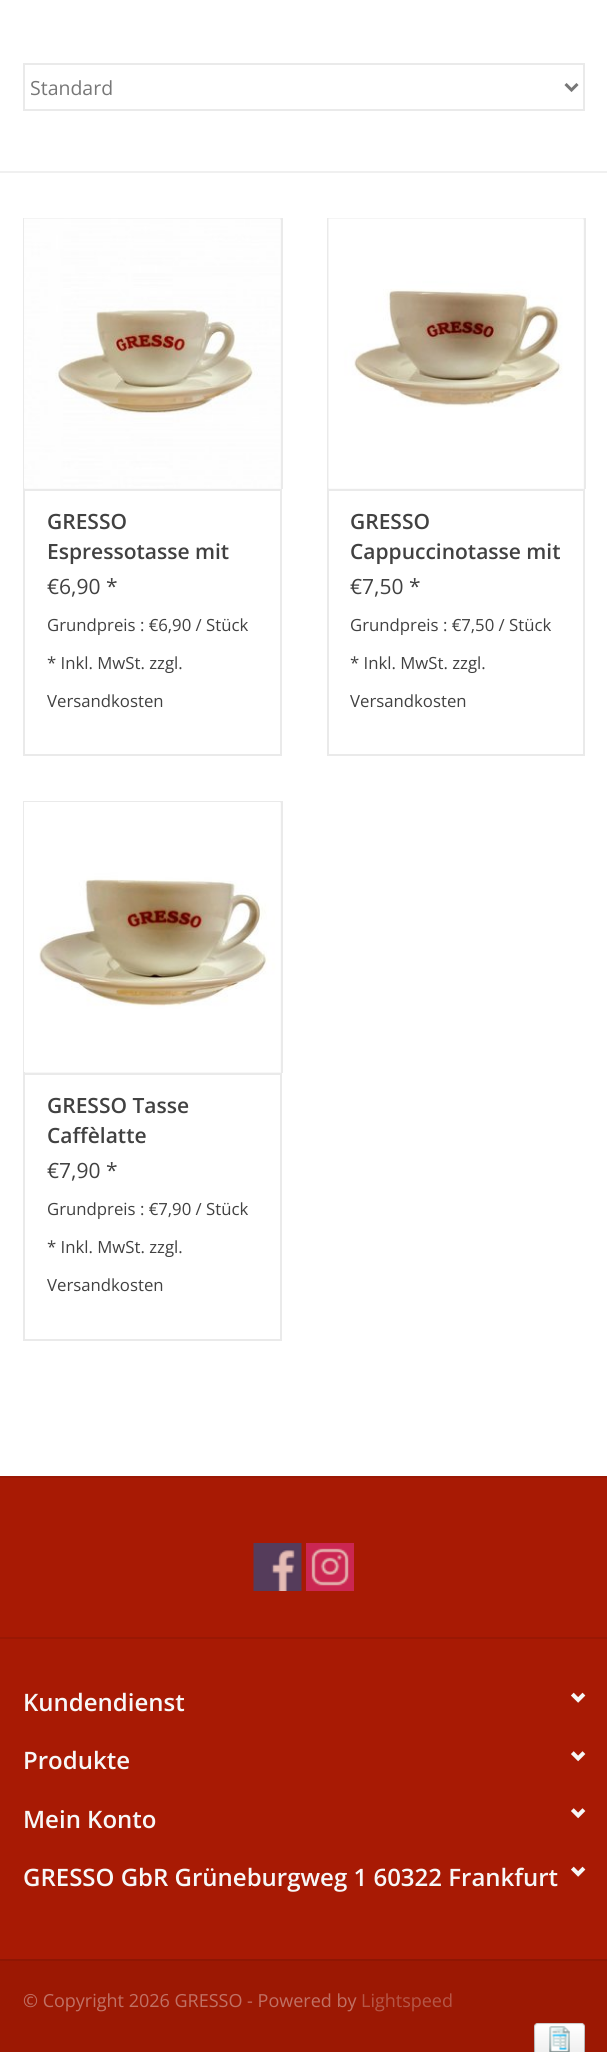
import math
import cairo



def draw_image(context, path, x, y, w, h):
    context.save()
    context.set_source_surface(cairo.ImageSurface.create_from_png(path), x, y)
    context.rectangle(x, y, w, h)
    context.fill()
    context.restore()


def draw(context):
    context.set_source_rgb(1, 1, 1)
    context.paint()
    context.set_source_rgb(240 / 255, 240 / 255, 240 / 255)
    context.rectangle(0, 171, 607, 2)
    context.fill()
    context.rectangle(24, 64, 560, 46)
    context.set_source_rgb(234 / 255, 234 / 255, 234 / 255)
    context.stroke()
    context.new_path()
    context.move_to(565.5, 84)
    context.line_to(571.5, 90)
    context.line_to(577.5, 84)
    context.set_source_rgb(119 / 255, 119 / 255, 119 / 255)
    context.set_line_width(3)
    context.stroke()
    context.set_source_rgb(247 / 255, 247 / 255, 247 / 255)
    context.rectangle(25, 220, 256, 269)
    context.fill()
    context.set_source_rgb(234 / 255, 234 / 255, 234 / 255)
    context.rectangle(23, 218, 259, 2)
    context.fill()
    context.rectangle(281, 218, 2, 271)
    context.fill()
    context.rectangle(23, 218, 2, 271)
    context.fill()
    draw_image(context, "images/1.png", 24, 218, 257, 271)
    context.rectangle(24, 490, 257, 265)
    context.set_line_width(2)
    context.stroke()
    context.set_source_rgb(247 / 255, 247 / 255, 247 / 255)
    context.rectangle(329, 220, 255, 269)
    context.fill()
    context.set_source_rgb(234 / 255, 234 / 255, 234 / 255)
    context.rectangle(327, 218, 258, 2)
    context.fill()
    context.rectangle(584, 218, 2, 271)
    context.fill()
    context.rectangle(327, 218, 2, 271)
    context.fill()
    draw_image(context, "images/2.png", 328, 218, 256, 271)
    context.rectangle(328, 490, 256, 265)
    context.stroke()
    context.set_source_rgb(247 / 255, 247 / 255, 247 / 255)
    context.rectangle(25, 803, 256, 270)
    context.fill()
    context.set_source_rgb(234 / 255, 234 / 255, 234 / 255)
    context.rectangle(23, 801, 259, 2)
    context.fill()
    context.rectangle(281, 801, 2, 272)
    context.fill()
    context.rectangle(23, 801, 2, 272)
    context.fill()
    draw_image(context, "images/3.png", 24, 802, 257, 270)
    context.rectangle(24, 1074, 257, 266)
    context.stroke()
    context.set_source_rgb(168 / 255, 26 / 255, 4 / 255)
    context.rectangle(0, 1478, 607, 481)
    context.fill()
    context.set_source_rgb(154 / 255, 24 / 255, 4 / 255)
    context.rectangle(0, 1476, 607, 2)
    context.fill()
    draw_image(context, "images/4.png", 253, 1543, 49, 48)
    draw_image(context, "images/5.png", 306, 1543, 48, 48)
    context.rectangle(0, 1637, 607, 2)
    context.fill()
    draw_image(context, "images/6.png", 571, 1692, 15, 11)
    draw_image(context, "images/7.png", 571, 1751, 15, 11)
    draw_image(context, "images/7.png", 571, 1808, 15, 11)
    draw_image(context, "images/6.png", 571, 1866, 15, 11)
    context.set_source_rgb(143 / 255, 22 / 255, 3 / 255)
    context.rectangle(0, 1959, 607, 2)
    context.fill()
    context.set_source_rgb(156 / 255, 24 / 255, 3 / 255)
    context.rectangle(0, 1961, 607, 91)
    context.fill()
    draw_image(context, "images/8.png", 534, 2023, 51, 29)
    context.select_font_face("Open Sans")
    context.set_font_size(19.5)
    context.set_source_rgb(119 / 255, 119 / 255, 119 / 255)
    context.move_to(30, 95)
    context.show_text("Standard")
    context.select_font_face("Open Sans SemiBold")
    context.set_font_size(21)
    context.set_source_rgb(65 / 255, 65 / 255, 65 / 255)
    context.move_to(47, 529)
    context.show_text("GRESSO")
    context.move_to(47, 559)
    context.show_text("Espressotasse mit")
    context.select_font_face("Open Sans")
    context.move_to(47, 594)
    context.show_text("€6,90 *")
    context.set_font_size(16.75)
    context.move_to(47, 631)
    context.show_text("Grundpreis : €6,90 / Stück")
    context.move_to(47, 669)
    context.show_text("* Inkl. MwSt. zzgl.")
    context.move_to(47, 707)
    context.show_text("Versandkosten")
    context.select_font_face("Open Sans SemiBold")
    context.set_font_size(21)
    context.move_to(350, 529)
    context.show_text("GRESSO")
    context.move_to(350, 559)
    context.show_text("Cappuccinotasse mit")
    context.select_font_face("Open Sans")
    context.move_to(350, 594)
    context.show_text("€7,50 *")
    context.set_font_size(16.75)
    context.move_to(350, 631)
    context.show_text("Grundpreis : €7,50 / Stück")
    context.move_to(350, 669)
    context.show_text("* Inkl. MwSt. zzgl.")
    context.move_to(350, 707)
    context.show_text("Versandkosten")
    context.select_font_face("Open Sans SemiBold")
    context.set_font_size(21)
    context.move_to(47, 1113)
    context.show_text("GRESSO Tasse")
    context.move_to(47, 1143)
    context.show_text("Caffèlatte")
    context.select_font_face("Open Sans")
    context.move_to(47, 1178)
    context.show_text("€7,90 *")
    context.set_font_size(16.75)
    context.move_to(47, 1215)
    context.show_text("Grundpreis : €7,90 / Stück")
    context.move_to(47, 1253)
    context.show_text("* Inkl. MwSt. zzgl.")
    context.move_to(47, 1291)
    context.show_text("Versandkosten")
    context.select_font_face("Open Sans SemiBold")
    context.set_font_size(24)
    context.set_source_rgb(247 / 255, 247 / 255, 247 / 255)
    context.move_to(23, 1711)
    context.show_text("Kundendienst")
    context.move_to(23, 1769)
    context.show_text("Produkte")
    context.move_to(23, 1828)
    context.show_text("Mein Konto")
    context.move_to(23, 1886)
    context.show_text("GRESSO GbR Grüneburgweg 1 60322 Frankfurt")
    context.select_font_face("Open Sans")
    context.set_font_size(18)
    context.set_source_rgb(192 / 255, 113 / 255, 101 / 255)
    context.move_to(23, 2007)
    context.show_text("© Copyright 2026 GRESSO - Powered by")
    context.set_source_rgb(181 / 255, 86 / 255, 71 / 255)
    context.move_to(361, 2007)
    context.show_text("Lightspeed")


surface = cairo.ImageSurface(cairo.Format.RGB24, 607, 2052)
context = cairo.Context(surface)
options = cairo.FontOptions()
options.set_hint_metrics(cairo.HintMetrics.OFF)
options.set_hint_style(cairo.HintStyle.NONE)
context.set_font_options(options)
context.set_miter_limit(4)
draw(context)
surface.write_to_png("out.png")
